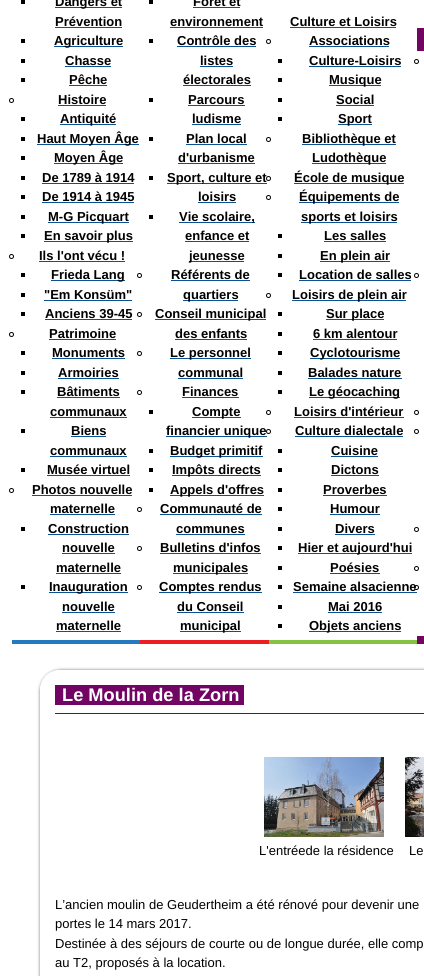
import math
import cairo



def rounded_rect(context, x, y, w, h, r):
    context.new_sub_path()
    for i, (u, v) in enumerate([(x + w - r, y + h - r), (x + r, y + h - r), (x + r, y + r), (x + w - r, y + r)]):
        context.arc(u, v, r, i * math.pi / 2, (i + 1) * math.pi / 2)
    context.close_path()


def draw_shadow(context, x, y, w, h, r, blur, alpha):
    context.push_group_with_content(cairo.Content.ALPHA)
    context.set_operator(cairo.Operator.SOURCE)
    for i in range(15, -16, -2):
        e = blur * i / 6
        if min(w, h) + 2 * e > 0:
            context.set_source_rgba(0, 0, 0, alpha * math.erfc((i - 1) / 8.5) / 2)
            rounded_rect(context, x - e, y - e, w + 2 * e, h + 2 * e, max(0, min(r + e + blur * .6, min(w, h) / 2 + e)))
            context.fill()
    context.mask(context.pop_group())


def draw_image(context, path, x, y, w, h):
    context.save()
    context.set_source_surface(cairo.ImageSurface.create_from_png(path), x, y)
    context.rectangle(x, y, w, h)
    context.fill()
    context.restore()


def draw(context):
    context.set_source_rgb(1, 1, 1)
    context.paint()
    context.set_source_rgb(36 / 255, 121 / 255, 191 / 255)
    context.rectangle(12, 640, 128, 4)
    context.fill()
    context.set_source_rgb(0, 0, 0)
    context.rectangle(21, 0, 4, 4)
    context.fill()
    context.set_source_rgb(9 / 255, 81 / 255, 151 / 255)
    context.rectangle(55, 7, 67, 1)
    context.fill()
    context.rectangle(55, 27, 67, 1)
    context.fill()
    context.set_source_rgb(0, 0, 0)
    context.rectangle(21, 39, 4, 4)
    context.fill()
    context.set_source_rgb(9 / 255, 81 / 255, 151 / 255)
    context.rectangle(54, 46, 69, 1)
    context.fill()
    context.set_source_rgb(0, 0, 0)
    context.rectangle(21, 59, 4, 4)
    context.fill()
    context.set_source_rgb(9 / 255, 81 / 255, 151 / 255)
    context.rectangle(65, 66, 46, 1)
    context.fill()
    context.set_source_rgb(0, 0, 0)
    context.rectangle(21, 78, 4, 4)
    context.fill()
    context.set_source_rgb(9 / 255, 81 / 255, 151 / 255)
    context.rectangle(69, 85, 38, 1)
    context.fill()
    context.arc(11.5, 100.5, 2, 0, 2 * math.pi)
    context.set_source_rgb(0, 0, 0)
    context.set_line_width(1)
    context.stroke()
    context.set_source_rgb(9 / 255, 81 / 255, 151 / 255)
    context.rectangle(58, 105, 48, 1)
    context.fill()
    context.set_source_rgb(0, 0, 0)
    context.rectangle(21, 117, 4, 4)
    context.fill()
    context.set_source_rgb(9 / 255, 81 / 255, 151 / 255)
    context.rectangle(60, 124, 56, 1)
    context.fill()
    context.set_source_rgb(0, 0, 0)
    context.rectangle(21, 137, 4, 4)
    context.fill()
    context.set_source_rgb(9 / 255, 81 / 255, 151 / 255)
    context.rectangle(37, 144, 102, 1)
    context.fill()
    context.set_source_rgb(0, 0, 0)
    context.rectangle(21, 156, 4, 4)
    context.fill()
    context.set_source_rgb(9 / 255, 81 / 255, 151 / 255)
    context.rectangle(54, 163, 69, 1)
    context.fill()
    context.set_source_rgb(0, 0, 0)
    context.rectangle(21, 176, 4, 4)
    context.fill()
    context.set_source_rgb(9 / 255, 81 / 255, 151 / 255)
    context.rectangle(42, 183, 92, 1)
    context.fill()
    context.set_source_rgb(0, 0, 0)
    context.rectangle(21, 195, 4, 4)
    context.fill()
    context.set_source_rgb(9 / 255, 81 / 255, 151 / 255)
    context.rectangle(42, 202, 92, 1)
    context.fill()
    context.set_source_rgb(0, 0, 0)
    context.rectangle(21, 215, 4, 4)
    context.fill()
    context.set_source_rgb(9 / 255, 81 / 255, 151 / 255)
    context.rectangle(48, 222, 81, 1)
    context.fill()
    context.set_source_rgb(0, 0, 0)
    context.rectangle(21, 234, 4, 4)
    context.fill()
    context.set_source_rgb(9 / 255, 81 / 255, 151 / 255)
    context.rectangle(44, 241, 89, 1)
    context.fill()
    context.arc(11.5, 256.5, 2, 0, 2 * math.pi)
    context.set_source_rgb(0, 0, 0)
    context.stroke()
    context.set_source_rgb(9 / 255, 81 / 255, 151 / 255)
    context.rectangle(39, 261, 86, 1)
    context.fill()
    context.set_source_rgb(0, 0, 0)
    context.rectangle(21, 273, 4, 4)
    context.fill()
    context.set_source_rgb(9 / 255, 81 / 255, 151 / 255)
    context.rectangle(51, 280, 74, 1)
    context.fill()
    context.set_source_rgb(0, 0, 0)
    context.rectangle(21, 293, 4, 4)
    context.fill()
    context.set_source_rgb(9 / 255, 81 / 255, 151 / 255)
    context.rectangle(44, 300, 88, 1)
    context.fill()
    context.set_source_rgb(0, 0, 0)
    context.rectangle(21, 312, 4, 4)
    context.fill()
    context.set_source_rgb(9 / 255, 81 / 255, 151 / 255)
    context.rectangle(45, 319, 87, 1)
    context.fill()
    context.arc(11.5, 334.5, 2, 0, 2 * math.pi)
    context.set_source_rgb(0, 0, 0)
    context.stroke()
    context.set_source_rgb(9 / 255, 81 / 255, 151 / 255)
    context.rectangle(49, 339, 67, 1)
    context.fill()
    context.set_source_rgb(0, 0, 0)
    context.rectangle(21, 351, 4, 4)
    context.fill()
    context.set_source_rgb(9 / 255, 81 / 255, 151 / 255)
    context.rectangle(52, 358, 73, 1)
    context.fill()
    context.set_source_rgb(0, 0, 0)
    context.rectangle(21, 371, 4, 4)
    context.fill()
    context.set_source_rgb(9 / 255, 81 / 255, 151 / 255)
    context.rectangle(58, 378, 61, 1)
    context.fill()
    context.set_source_rgb(0, 0, 0)
    context.rectangle(21, 390, 4, 4)
    context.fill()
    context.set_source_rgb(9 / 255, 81 / 255, 151 / 255)
    context.rectangle(57, 397, 63, 1)
    context.fill()
    context.rectangle(50, 417, 77, 1)
    context.fill()
    context.set_source_rgb(0, 0, 0)
    context.rectangle(21, 429, 4, 4)
    context.fill()
    context.set_source_rgb(9 / 255, 81 / 255, 151 / 255)
    context.rectangle(71, 436, 35, 1)
    context.fill()
    context.rectangle(50, 456, 77, 1)
    context.fill()
    context.set_source_rgb(0, 0, 0)
    context.rectangle(21, 468, 4, 4)
    context.fill()
    context.set_source_rgb(9 / 255, 81 / 255, 151 / 255)
    context.rectangle(47, 475, 83, 1)
    context.fill()
    context.arc(11.5, 490.5, 2, 0, 2 * math.pi)
    context.set_source_rgb(0, 0, 0)
    context.stroke()
    context.set_source_rgb(9 / 255, 81 / 255, 151 / 255)
    context.rectangle(32, 495, 100, 1)
    context.fill()
    context.rectangle(50, 514, 65, 1)
    context.fill()
    context.set_source_rgb(0, 0, 0)
    context.rectangle(21, 527, 4, 4)
    context.fill()
    context.set_source_rgb(9 / 255, 81 / 255, 151 / 255)
    context.rectangle(48, 534, 81, 1)
    context.fill()
    context.rectangle(62, 553, 53, 1)
    context.fill()
    context.rectangle(56, 573, 65, 1)
    context.fill()
    context.set_source_rgb(0, 0, 0)
    context.rectangle(21, 585, 4, 4)
    context.fill()
    context.set_source_rgb(9 / 255, 81 / 255, 151 / 255)
    context.rectangle(49, 592, 79, 1)
    context.fill()
    context.rectangle(62, 612, 53, 1)
    context.fill()
    context.rectangle(56, 631, 65, 1)
    context.fill()
    context.set_source_rgb(237 / 255, 29 / 255, 36 / 255)
    context.rectangle(140, 640, 129, 4)
    context.fill()
    context.set_source_rgb(0, 0, 0)
    context.rectangle(149, 0, 4, 4)
    context.fill()
    context.set_source_rgb(9 / 255, 81 / 255, 151 / 255)
    context.rectangle(193, 7, 47, 1)
    context.fill()
    context.rectangle(170, 27, 93, 1)
    context.fill()
    context.set_source_rgb(0, 0, 0)
    context.rectangle(149, 39, 4, 4)
    context.fill()
    context.set_source_rgb(9 / 255, 81 / 255, 151 / 255)
    context.rectangle(177, 46, 79, 1)
    context.fill()
    context.rectangle(200, 66, 33, 1)
    context.fill()
    context.rectangle(183, 85, 68, 1)
    context.fill()
    context.set_source_rgb(0, 0, 0)
    context.rectangle(149, 98, 4, 4)
    context.fill()
    context.set_source_rgb(9 / 255, 81 / 255, 151 / 255)
    context.rectangle(188, 105, 57, 1)
    context.fill()
    context.rectangle(192, 124, 49, 1)
    context.fill()
    context.set_source_rgb(0, 0, 0)
    context.rectangle(149, 137, 4, 4)
    context.fill()
    context.set_source_rgb(9 / 255, 81 / 255, 151 / 255)
    context.rectangle(186, 144, 61, 1)
    context.fill()
    context.rectangle(178, 163, 77, 1)
    context.fill()
    context.set_source_rgb(0, 0, 0)
    context.rectangle(149, 176, 4, 4)
    context.fill()
    context.set_source_rgb(9 / 255, 81 / 255, 151 / 255)
    context.rectangle(167, 183, 100, 1)
    context.fill()
    context.rectangle(198, 202, 38, 1)
    context.fill()
    context.set_source_rgb(0, 0, 0)
    context.rectangle(149, 215, 4, 4)
    context.fill()
    context.set_source_rgb(9 / 255, 81 / 255, 151 / 255)
    context.rectangle(179, 222, 76, 1)
    context.fill()
    context.rectangle(185, 241, 64, 1)
    context.fill()
    context.rectangle(189, 261, 55, 1)
    context.fill()
    context.arc(139.5, 275.5, 2, 0, 2 * math.pi)
    context.set_source_rgb(0, 0, 0)
    context.stroke()
    context.set_source_rgb(9 / 255, 81 / 255, 151 / 255)
    context.rectangle(171, 280, 79, 1)
    context.fill()
    context.rectangle(183, 300, 55, 1)
    context.fill()
    context.arc(139.5, 314.5, 2, 0, 2 * math.pi)
    context.set_source_rgb(0, 0, 0)
    context.stroke()
    context.set_source_rgb(9 / 255, 81 / 255, 151 / 255)
    context.rectangle(155, 319, 111, 1)
    context.fill()
    context.rectangle(175, 339, 72, 1)
    context.fill()
    context.arc(139.5, 353.5, 2, 0, 2 * math.pi)
    context.set_source_rgb(0, 0, 0)
    context.stroke()
    context.set_source_rgb(9 / 255, 81 / 255, 151 / 255)
    context.rectangle(170, 358, 81, 1)
    context.fill()
    context.rectangle(178, 378, 65, 1)
    context.fill()
    context.arc(139.5, 392.5, 2, 0, 2 * math.pi)
    context.set_source_rgb(0, 0, 0)
    context.stroke()
    context.set_source_rgb(9 / 255, 81 / 255, 151 / 255)
    context.rectangle(182, 397, 57, 1)
    context.fill()
    context.set_source_rgb(0, 0, 0)
    context.rectangle(149, 410, 4, 4)
    context.fill()
    context.set_source_rgb(9 / 255, 81 / 255, 151 / 255)
    context.rectangle(192, 417, 49, 1)
    context.fill()
    context.rectangle(166, 436, 101, 1)
    context.fill()
    context.set_source_rgb(0, 0, 0)
    context.rectangle(149, 449, 4, 4)
    context.fill()
    context.set_source_rgb(9 / 255, 81 / 255, 151 / 255)
    context.rectangle(170, 456, 93, 1)
    context.fill()
    context.set_source_rgb(0, 0, 0)
    context.rectangle(149, 468, 4, 4)
    context.fill()
    context.set_source_rgb(9 / 255, 81 / 255, 151 / 255)
    context.rectangle(172, 475, 89, 1)
    context.fill()
    context.set_source_rgb(0, 0, 0)
    context.rectangle(149, 488, 4, 4)
    context.fill()
    context.set_source_rgb(9 / 255, 81 / 255, 151 / 255)
    context.rectangle(170, 495, 94, 1)
    context.fill()
    context.arc(139.5, 509.5, 2, 0, 2 * math.pi)
    context.set_source_rgb(0, 0, 0)
    context.stroke()
    context.set_source_rgb(9 / 255, 81 / 255, 151 / 255)
    context.rectangle(160, 514, 102, 1)
    context.fill()
    context.rectangle(176, 534, 69, 1)
    context.fill()
    context.arc(139.5, 548.5, 2, 0, 2 * math.pi)
    context.set_source_rgb(0, 0, 0)
    context.stroke()
    context.set_source_rgb(9 / 255, 81 / 255, 151 / 255)
    context.rectangle(160, 553, 101, 1)
    context.fill()
    context.rectangle(173, 573, 75, 1)
    context.fill()
    context.arc(139.5, 587.5, 2, 0, 2 * math.pi)
    context.set_source_rgb(0, 0, 0)
    context.stroke()
    context.set_source_rgb(9 / 255, 81 / 255, 151 / 255)
    context.rectangle(159, 592, 103, 1)
    context.fill()
    context.rectangle(177, 612, 67, 1)
    context.fill()
    context.rectangle(180, 631, 61, 1)
    context.fill()
    context.set_source_rgb(130 / 255, 195 / 255, 65 / 255)
    context.rectangle(269, 640, 148, 4)
    context.fill()
    context.set_source_rgb(9 / 255, 81 / 255, 151 / 255)
    context.rectangle(290, 27, 106, 1)
    context.fill()
    context.arc(268.5, 41.5, 2, 0, 2 * math.pi)
    context.set_source_rgb(0, 0, 0)
    context.stroke()
    context.set_source_rgb(9 / 255, 81 / 255, 151 / 255)
    context.rectangle(309, 46, 80, 1)
    context.fill()
    context.set_source_rgb(0, 0, 0)
    context.rectangle(278, 59, 4, 4)
    context.fill()
    context.set_source_rgb(9 / 255, 81 / 255, 151 / 255)
    context.rectangle(309, 66, 92, 1)
    context.fill()
    context.set_source_rgb(0, 0, 0)
    context.rectangle(278, 78, 4, 4)
    context.fill()
    context.set_source_rgb(9 / 255, 81 / 255, 151 / 255)
    context.rectangle(329, 85, 52, 1)
    context.fill()
    context.set_source_rgb(0, 0, 0)
    context.rectangle(278, 98, 4, 4)
    context.fill()
    context.set_source_rgb(9 / 255, 81 / 255, 151 / 255)
    context.rectangle(336, 105, 38, 1)
    context.fill()
    context.set_source_rgb(0, 0, 0)
    context.rectangle(278, 117, 4, 4)
    context.fill()
    context.set_source_rgb(9 / 255, 81 / 255, 151 / 255)
    context.rectangle(338, 124, 34, 1)
    context.fill()
    context.arc(268.5, 139.5, 2, 0, 2 * math.pi)
    context.set_source_rgb(0, 0, 0)
    context.stroke()
    context.set_source_rgb(9 / 255, 81 / 255, 151 / 255)
    context.rectangle(302, 144, 94, 1)
    context.fill()
    context.rectangle(312, 163, 74, 1)
    context.fill()
    context.arc(268.5, 178.5, 2, 0, 2 * math.pi)
    context.set_source_rgb(0, 0, 0)
    context.stroke()
    context.set_source_rgb(9 / 255, 81 / 255, 151 / 255)
    context.rectangle(294, 183, 110, 1)
    context.fill()
    context.arc(268.5, 197.5, 2, 0, 2 * math.pi)
    context.set_source_rgb(0, 0, 0)
    context.stroke()
    context.set_source_rgb(9 / 255, 81 / 255, 151 / 255)
    context.rectangle(299, 202, 100, 1)
    context.fill()
    context.rectangle(301, 222, 96, 1)
    context.fill()
    context.set_source_rgb(0, 0, 0)
    context.rectangle(278, 234, 4, 4)
    context.fill()
    context.set_source_rgb(9 / 255, 81 / 255, 151 / 255)
    context.rectangle(324, 241, 62, 1)
    context.fill()
    context.set_source_rgb(0, 0, 0)
    context.rectangle(278, 254, 4, 4)
    context.fill()
    context.set_source_rgb(9 / 255, 81 / 255, 151 / 255)
    context.rectangle(320, 261, 70, 1)
    context.fill()
    context.set_source_rgb(0, 0, 0)
    context.rectangle(278, 273, 4, 4)
    context.fill()
    context.set_source_rgb(9 / 255, 81 / 255, 151 / 255)
    context.rectangle(299, 280, 112, 1)
    context.fill()
    context.arc(268.5, 295.5, 2, 0, 2 * math.pi)
    context.set_source_rgb(0, 0, 0)
    context.stroke()
    context.set_source_rgb(9 / 255, 81 / 255, 151 / 255)
    context.rectangle(292, 300, 114, 1)
    context.fill()
    context.set_source_rgb(0, 0, 0)
    context.rectangle(278, 312, 4, 4)
    context.fill()
    context.set_source_rgb(9 / 255, 81 / 255, 151 / 255)
    context.rectangle(326, 319, 58, 1)
    context.fill()
    context.set_source_rgb(0, 0, 0)
    context.rectangle(278, 332, 4, 4)
    context.fill()
    context.set_source_rgb(9 / 255, 81 / 255, 151 / 255)
    context.rectangle(313, 339, 84, 1)
    context.fill()
    context.set_source_rgb(0, 0, 0)
    context.rectangle(278, 351, 4, 4)
    context.fill()
    context.set_source_rgb(9 / 255, 81 / 255, 151 / 255)
    context.rectangle(310, 358, 90, 1)
    context.fill()
    context.set_source_rgb(0, 0, 0)
    context.rectangle(278, 371, 4, 4)
    context.fill()
    context.set_source_rgb(9 / 255, 81 / 255, 151 / 255)
    context.rectangle(308, 378, 94, 1)
    context.fill()
    context.set_source_rgb(0, 0, 0)
    context.rectangle(278, 390, 4, 4)
    context.fill()
    context.set_source_rgb(9 / 255, 81 / 255, 151 / 255)
    context.rectangle(309, 397, 91, 1)
    context.fill()
    context.arc(268.5, 412.5, 2, 0, 2 * math.pi)
    context.set_source_rgb(0, 0, 0)
    context.stroke()
    context.set_source_rgb(9 / 255, 81 / 255, 151 / 255)
    context.rectangle(294, 417, 110, 1)
    context.fill()
    context.arc(268.5, 431.5, 2, 0, 2 * math.pi)
    context.set_source_rgb(0, 0, 0)
    context.stroke()
    context.set_source_rgb(9 / 255, 81 / 255, 151 / 255)
    context.rectangle(295, 436, 108, 1)
    context.fill()
    context.set_source_rgb(0, 0, 0)
    context.rectangle(278, 449, 4, 4)
    context.fill()
    context.set_source_rgb(9 / 255, 81 / 255, 151 / 255)
    context.rectangle(331, 456, 47, 1)
    context.fill()
    context.set_source_rgb(0, 0, 0)
    context.rectangle(278, 468, 4, 4)
    context.fill()
    context.set_source_rgb(9 / 255, 81 / 255, 151 / 255)
    context.rectangle(331, 475, 48, 1)
    context.fill()
    context.set_source_rgb(0, 0, 0)
    context.rectangle(278, 488, 4, 4)
    context.fill()
    context.set_source_rgb(9 / 255, 81 / 255, 151 / 255)
    context.rectangle(323, 495, 64, 1)
    context.fill()
    context.set_source_rgb(0, 0, 0)
    context.rectangle(278, 507, 4, 4)
    context.fill()
    context.set_source_rgb(9 / 255, 81 / 255, 151 / 255)
    context.rectangle(330, 514, 50, 1)
    context.fill()
    context.set_source_rgb(0, 0, 0)
    context.rectangle(278, 527, 4, 4)
    context.fill()
    context.set_source_rgb(9 / 255, 81 / 255, 151 / 255)
    context.rectangle(335, 534, 40, 1)
    context.fill()
    context.set_source_rgb(0, 0, 0)
    context.rectangle(278, 546, 4, 4)
    context.fill()
    context.set_source_rgb(9 / 255, 81 / 255, 151 / 255)
    context.rectangle(298, 553, 114, 1)
    context.fill()
    context.set_source_rgb(0, 0, 0)
    context.rectangle(278, 566, 4, 4)
    context.fill()
    context.set_source_rgb(9 / 255, 81 / 255, 151 / 255)
    context.rectangle(330, 573, 50, 1)
    context.fill()
    context.set_source_rgb(0, 0, 0)
    context.rectangle(278, 585, 4, 4)
    context.fill()
    context.set_source_rgb(9 / 255, 81 / 255, 151 / 255)
    context.rectangle(293, 592, 124, 1)
    context.fill()
    context.set_source_rgb(0, 0, 0)
    context.rectangle(278, 605, 4, 4)
    context.fill()
    context.set_source_rgb(9 / 255, 81 / 255, 151 / 255)
    context.rectangle(328, 612, 54, 1)
    context.fill()
    context.set_source_rgb(0, 0, 0)
    context.rectangle(278, 624, 4, 4)
    context.fill()
    context.set_source_rgb(9 / 255, 81 / 255, 151 / 255)
    context.rectangle(309, 631, 92, 1)
    context.fill()
    context.set_source_rgb(114 / 255, 4 / 255, 100 / 255)
    context.rectangle(417, 28, 7, 616)
    context.fill()
    context.set_source_rgb(1, 1, 1)
    context.rectangle(417, 51, 7, 585)
    context.fill()
    context.arc(416.5, 61.5, 2, 0, 2 * math.pi)
    context.set_source_rgb(0, 0, 0)
    context.stroke()
    context.arc(416.5, 275.5, 2, 0, 2 * math.pi)
    context.stroke()
    context.arc(416.5, 412.5, 2, 0, 2 * math.pi)
    context.stroke()
    context.arc(416.5, 431.5, 2, 0, 2 * math.pi)
    context.stroke()
    context.arc(416.5, 529.5, 2, 0, 2 * math.pi)
    context.stroke()
    context.arc(416.5, 568.5, 2, 0, 2 * math.pi)
    context.stroke()
    context.arc(416.5, 587.5, 2, 0, 2 * math.pi)
    context.stroke()
    context.save()
    context.set_fill_rule(cairo.FillRule.EVEN_ODD)
    context.new_path()
    context.move_to(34, 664)
    context.line_to(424, 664)
    context.line_to(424, 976)
    context.line_to(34, 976)
    context.close_path()
    context.move_to(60, 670)
    context.line_to(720, 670)
    context.curve_to(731, 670, 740, 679, 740, 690)
    context.line_to(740, 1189)
    context.curve_to(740, 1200, 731, 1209, 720, 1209)
    context.line_to(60, 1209)
    context.curve_to(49, 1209, 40, 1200, 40, 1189)
    context.line_to(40, 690)
    context.curve_to(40, 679, 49, 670, 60, 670)
    context.close_path()
    context.clip()
    context.set_source_rgb(119 / 255, 119 / 255, 119 / 255)
    draw_shadow(context, 40, 670, 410, 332, 21, 1.5, 1)
    context.restore()
    context.set_source_rgb(114 / 255, 4 / 255, 100 / 255)
    context.rectangle(55, 685, 189, 20)
    context.fill()
    context.rectangle(55, 713, 369, 1)
    context.fill()
    draw_image(context, "images/1.png", 264, 757, 120, 80)
    draw_image(context, "images/2.png", 405, 757, 19, 80)
    context.select_font_face("Liberation Sans", cairo.FontSlant.NORMAL, cairo.FontWeight.BOLD)
    context.set_font_size(13)
    context.set_source_rgb(0, 0, 0)
    context.move_to(55, 6)
    context.show_text("Dangers et")
    context.move_to(55, 26)
    context.show_text("Prévention")
    context.move_to(54, 45)
    context.show_text("Agriculture")
    context.move_to(65, 65)
    context.show_text("Chasse")
    context.move_to(69, 84)
    context.show_text("Pêche")
    context.move_to(58, 104)
    context.show_text("Histoire")
    context.move_to(60, 123)
    context.show_text("Antiquité")
    context.move_to(37, 143)
    context.show_text("Haut Moyen Âge")
    context.move_to(54, 162)
    context.show_text("Moyen Âge")
    context.move_to(42, 182)
    context.show_text("De 1789 à 1914")
    context.move_to(42, 201)
    context.show_text("De 1914 à 1945")
    context.move_to(48, 221)
    context.show_text("M-G Picquart")
    context.move_to(44, 240)
    context.show_text("En savoir plus")
    context.move_to(39, 260)
    context.show_text("Ils l'ont vécu !")
    context.move_to(51, 279)
    context.show_text("Frieda Lang")
    context.move_to(44, 299)
    context.show_text("\"Em Konsüm\"")
    context.move_to(45, 318)
    context.show_text("Anciens 39-45")
    context.move_to(49, 338)
    context.show_text("Patrimoine")
    context.move_to(52, 357)
    context.show_text("Monuments")
    context.move_to(58, 377)
    context.show_text("Armoiries")
    context.move_to(57, 396)
    context.show_text("Bâtiments")
    context.move_to(50, 416)
    context.show_text("communaux")
    context.move_to(71, 435)
    context.show_text("Biens")
    context.move_to(50, 455)
    context.show_text("communaux")
    context.move_to(47, 474)
    context.show_text("Musée virtuel")
    context.move_to(32, 494)
    context.show_text("Photos nouvelle")
    context.move_to(50, 513)
    context.show_text("maternelle")
    context.move_to(48, 533)
    context.show_text("Construction")
    context.move_to(62, 552)
    context.show_text("nouvelle")
    context.move_to(56, 572)
    context.show_text("maternelle")
    context.move_to(49, 591)
    context.show_text("Inauguration")
    context.move_to(62, 611)
    context.show_text("nouvelle")
    context.move_to(56, 630)
    context.show_text("maternelle")
    context.move_to(193, 6)
    context.show_text("Forêt et")
    context.move_to(170, 26)
    context.show_text("environnement")
    context.move_to(177, 45)
    context.show_text("Contrôle des")
    context.move_to(200, 65)
    context.show_text("listes")
    context.move_to(183, 84)
    context.show_text("électorales")
    context.move_to(188, 104)
    context.show_text("Parcours")
    context.move_to(192, 123)
    context.show_text("ludisme")
    context.move_to(186, 143)
    context.show_text("Plan local")
    context.move_to(178, 162)
    context.show_text("d'urbanisme")
    context.move_to(167, 182)
    context.show_text("Sport, culture et")
    context.move_to(198, 201)
    context.show_text("loisirs")
    context.move_to(179, 221)
    context.show_text("Vie scolaire,")
    context.move_to(185, 240)
    context.show_text("enfance et")
    context.move_to(189, 260)
    context.show_text("jeunesse")
    context.move_to(171, 279)
    context.show_text("Référents de")
    context.move_to(183, 299)
    context.show_text("quartiers")
    context.move_to(155, 318)
    context.show_text("Conseil municipal")
    context.move_to(175, 338)
    context.show_text("des enfants")
    context.move_to(170, 357)
    context.show_text("Le personnel")
    context.move_to(178, 377)
    context.show_text("communal")
    context.move_to(182, 396)
    context.show_text("Finances")
    context.move_to(192, 416)
    context.show_text("Compte")
    context.move_to(166, 435)
    context.show_text("financier unique")
    context.move_to(170, 455)
    context.show_text("Budget primitif")
    context.move_to(172, 474)
    context.show_text("Impôts directs")
    context.move_to(170, 494)
    context.show_text("Appels d'offres")
    context.move_to(160, 513)
    context.show_text("Communauté de")
    context.move_to(176, 533)
    context.show_text("communes")
    context.move_to(160, 552)
    context.show_text("Bulletins d'infos")
    context.move_to(173, 572)
    context.show_text("municipales")
    context.move_to(159, 591)
    context.show_text("Comptes rendus")
    context.move_to(177, 611)
    context.show_text("du Conseil")
    context.move_to(180, 630)
    context.show_text("municipal")
    context.move_to(290, 26)
    context.show_text("Culture et Loisirs")
    context.move_to(309, 45)
    context.show_text("Associations")
    context.move_to(309, 65)
    context.show_text("Culture-Loisirs")
    context.move_to(329, 84)
    context.show_text("Musique")
    context.move_to(336, 104)
    context.show_text("Social")
    context.move_to(338, 123)
    context.show_text("Sport")
    context.move_to(302, 143)
    context.show_text("Bibliothèque et")
    context.move_to(312, 162)
    context.show_text("Ludothèque")
    context.move_to(294, 182)
    context.show_text("École de musique")
    context.move_to(299, 201)
    context.show_text("Équipements de")
    context.move_to(301, 221)
    context.show_text("sports et loisirs")
    context.move_to(324, 240)
    context.show_text("Les salles")
    context.move_to(320, 260)
    context.show_text("En plein air")
    context.move_to(299, 279)
    context.show_text("Location de salles")
    context.move_to(292, 299)
    context.show_text("Loisirs de plein air")
    context.move_to(326, 318)
    context.show_text("Sur place")
    context.move_to(313, 338)
    context.show_text("6 km alentour")
    context.move_to(310, 357)
    context.show_text("Cyclotourisme")
    context.move_to(308, 377)
    context.show_text("Balades nature")
    context.move_to(309, 396)
    context.show_text("Le géocaching")
    context.move_to(294, 416)
    context.show_text("Loisirs d'intérieur")
    context.move_to(295, 435)
    context.show_text("Culture dialectale")
    context.move_to(331, 455)
    context.show_text("Cuisine")
    context.move_to(331, 474)
    context.show_text("Dictons")
    context.move_to(323, 494)
    context.show_text("Proverbes")
    context.move_to(330, 513)
    context.show_text("Humour")
    context.move_to(335, 533)
    context.show_text("Divers")
    context.move_to(298, 552)
    context.show_text("Hier et aujourd'hui")
    context.move_to(330, 572)
    context.show_text("Poésies")
    context.move_to(293, 591)
    context.show_text("Semaine alsacienne")
    context.move_to(328, 611)
    context.show_text("Mai 2016")
    context.move_to(309, 630)
    context.show_text("Objets anciens")
    context.set_font_size(18.25)
    context.set_source_rgb(1, 1, 1)
    context.move_to(62, 701)
    context.show_text("Le Moulin de la Zorn")
    context.select_font_face("Liberation Sans")
    context.set_font_size(13)
    context.set_source_rgb(0, 0, 0)
    context.move_to(259, 855)
    context.show_text("L'entréede la résidence")
    context.move_to(409, 855)
    context.show_text("Le")
    context.move_to(55, 909)
    context.show_text("L’ancien moulin de Geudertheim a été rénové pour devenir une")
    context.move_to(55, 928)
    context.show_text("portes le 14 mars 2017.")
    context.move_to(55, 948)
    context.show_text("Destinée à des séjours de courte ou de longue durée, elle comp")
    context.move_to(55, 967)
    context.show_text("au T2, proposés à la location.")


surface = cairo.ImageSurface(cairo.Format.RGB24, 424, 976)
context = cairo.Context(surface)
options = cairo.FontOptions()
options.set_hint_metrics(cairo.HintMetrics.OFF)
options.set_hint_style(cairo.HintStyle.NONE)
context.set_font_options(options)
context.set_miter_limit(4)
draw(context)
surface.write_to_png("out.png")
